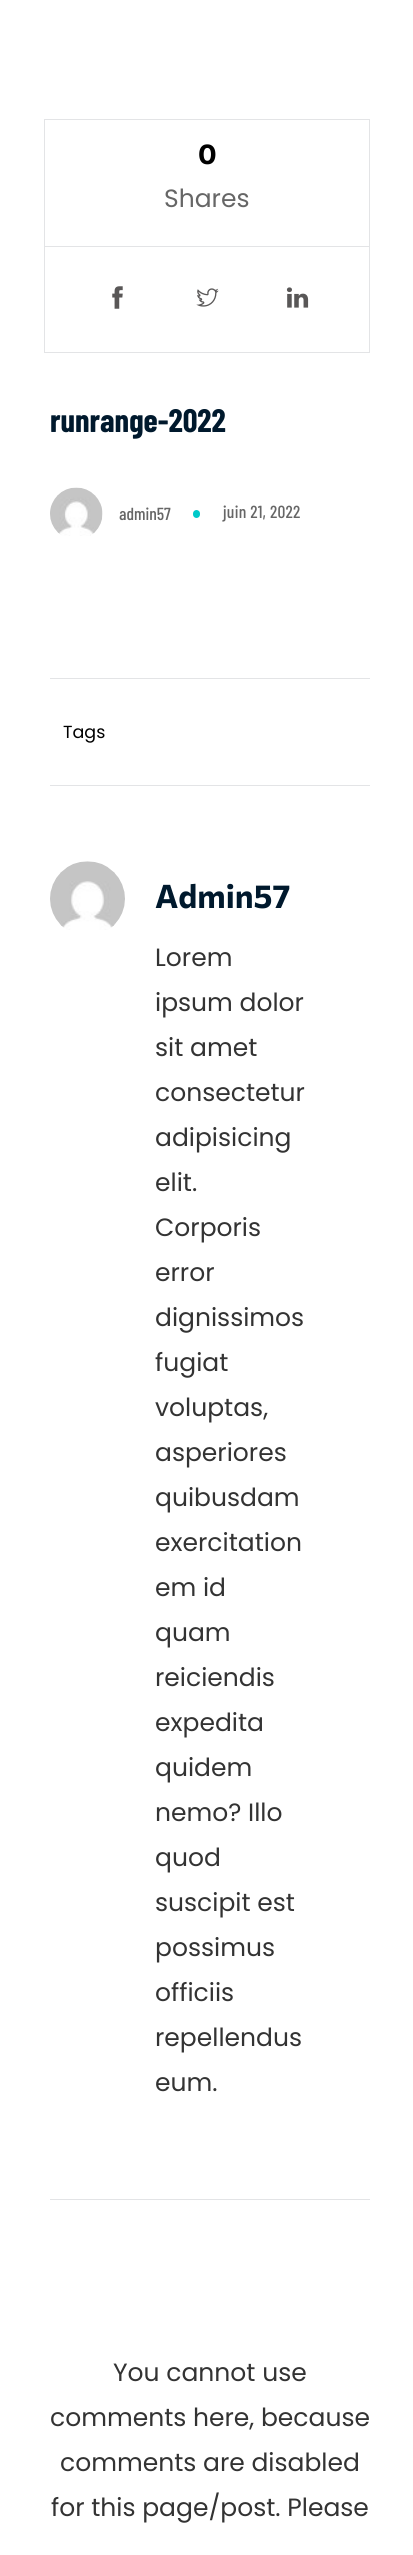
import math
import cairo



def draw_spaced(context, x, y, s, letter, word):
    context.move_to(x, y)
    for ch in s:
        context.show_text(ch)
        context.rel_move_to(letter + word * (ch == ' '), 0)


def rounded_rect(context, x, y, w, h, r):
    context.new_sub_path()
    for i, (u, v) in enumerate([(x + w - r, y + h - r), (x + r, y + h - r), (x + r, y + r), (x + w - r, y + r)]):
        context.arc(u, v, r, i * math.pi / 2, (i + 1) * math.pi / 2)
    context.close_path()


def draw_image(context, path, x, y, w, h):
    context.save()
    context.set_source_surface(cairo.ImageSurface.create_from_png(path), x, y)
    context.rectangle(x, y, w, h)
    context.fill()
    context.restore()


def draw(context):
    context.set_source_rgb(1, 1, 1)
    context.paint()
    context.rectangle(44.5, 119.5, 325, 233)
    context.set_source_rgb(227 / 255, 228 / 255, 230 / 255)
    context.set_line_width(1)
    context.stroke()
    context.rectangle(45, 246, 324, 1)
    context.fill()
    draw_image(context, "images/1.png", 112, 286, 11, 23)
    draw_image(context, "images/2.png", 196, 288, 23, 19)
    draw_image(context, "images/3.png", 286, 287, 23, 21)
    draw_image(context, "images/4.png", 50, 487, 53, 49)
    context.set_source_rgb(0, 201 / 255, 201 / 255)
    rounded_rect(context, 193, 510, 7, 8, 3.5)
    context.fill()
    context.set_source_rgb(227 / 255, 228 / 255, 230 / 255)
    context.rectangle(50, 678, 320, 1)
    context.fill()
    context.rectangle(50, 785, 320, 1)
    context.fill()
    context.rectangle(50, 2199, 320, 1)
    context.fill()
    draw_image(context, "images/5.png", 50, 861, 75, 69)
    context.select_font_face("Commissioner", cairo.FontSlant.NORMAL, cairo.FontWeight.BOLD)
    context.set_font_size(28)
    context.set_source_rgb(0, 0, 0)
    context.move_to(198, 164)
    context.show_text("0")
    context.select_font_face("Poppins")
    context.set_font_size(25)
    context.set_source_rgb(102 / 255, 102 / 255, 102 / 255)
    context.move_to(164, 207)
    context.show_text("Shares")
    context.select_font_face("Barlow Condensed", cairo.FontSlant.NORMAL, cairo.FontWeight.BOLD)
    context.set_font_size(32.5)
    context.set_source_rgb(0, 25 / 255, 45 / 255)
    context.move_to(50, 432)
    context.show_text("runrange-2022")
    context.select_font_face("Barlow Condensed Medium")
    context.set_font_size(17.5)
    context.set_source_rgb(102 / 255, 102 / 255, 102 / 255)
    context.move_to(119, 520)
    context.show_text("admin57")
    draw_spaced(context, 223, 518, "juin 21, 2022", 0.25, 0)
    context.select_font_face("Poppins")
    context.set_source_rgb(0, 0, 0)
    context.move_to(63, 738)
    context.show_text("Tags")
    context.select_font_face("Commissioner", cairo.FontSlant.NORMAL, cairo.FontWeight.BOLD)
    context.set_font_size(32.5)
    context.set_source_rgb(0, 25 / 255, 45 / 255)
    context.move_to(155, 908)
    context.show_text("Admin57")
    context.select_font_face("Poppins")
    context.set_font_size(25)
    context.set_source_rgb(51 / 255, 51 / 255, 51 / 255)
    context.move_to(155, 966)
    context.show_text("Lorem")
    context.move_to(155, 1011)
    context.show_text("ipsum dolor")
    context.move_to(155, 1056)
    context.show_text("sit amet")
    context.move_to(155, 1101)
    context.show_text("consectetur")
    context.move_to(155, 1146)
    context.show_text("adipisicing")
    context.move_to(155, 1191)
    context.show_text("elit.")
    context.move_to(155, 1236)
    context.show_text("Corporis")
    context.move_to(155, 1281)
    context.show_text("error")
    context.move_to(155, 1326)
    context.show_text("dignissimos")
    context.move_to(155, 1371)
    context.show_text("fugiat")
    context.move_to(155, 1416)
    context.show_text("voluptas,")
    context.move_to(155, 1461)
    context.show_text("asperiores")
    context.move_to(155, 1506)
    context.show_text("quibusdam")
    context.move_to(155, 1551)
    context.show_text("exercitation")
    context.move_to(155, 1596)
    context.show_text("em id")
    context.move_to(155, 1641)
    context.show_text("quam")
    context.move_to(155, 1686)
    context.show_text("reiciendis")
    context.move_to(155, 1731)
    context.show_text("expedita")
    context.move_to(155, 1776)
    context.show_text("quidem")
    context.move_to(155, 1821)
    context.show_text("nemo? Illo")
    context.move_to(155, 1866)
    context.show_text("quod")
    context.move_to(155, 1911)
    context.show_text("suscipit est")
    context.move_to(155, 1956)
    context.show_text("possimus")
    context.move_to(155, 2001)
    context.show_text("officiis")
    context.move_to(155, 2046)
    context.show_text("repellendus")
    context.move_to(155, 2091)
    context.show_text("eum.")
    context.move_to(113, 2381)
    context.show_text("You cannot use")
    context.move_to(50, 2426)
    context.show_text("comments here, because")
    context.move_to(60, 2471)
    context.show_text("comments are disabled")
    context.move_to(51, 2516)
    context.show_text("for this page/post. Please")


surface = cairo.ImageSurface(cairo.Format.RGB24, 413, 2555)
context = cairo.Context(surface)
options = cairo.FontOptions()
options.set_hint_metrics(cairo.HintMetrics.OFF)
options.set_hint_style(cairo.HintStyle.NONE)
context.set_font_options(options)
context.set_miter_limit(4)
draw(context)
surface.write_to_png("out.png")
